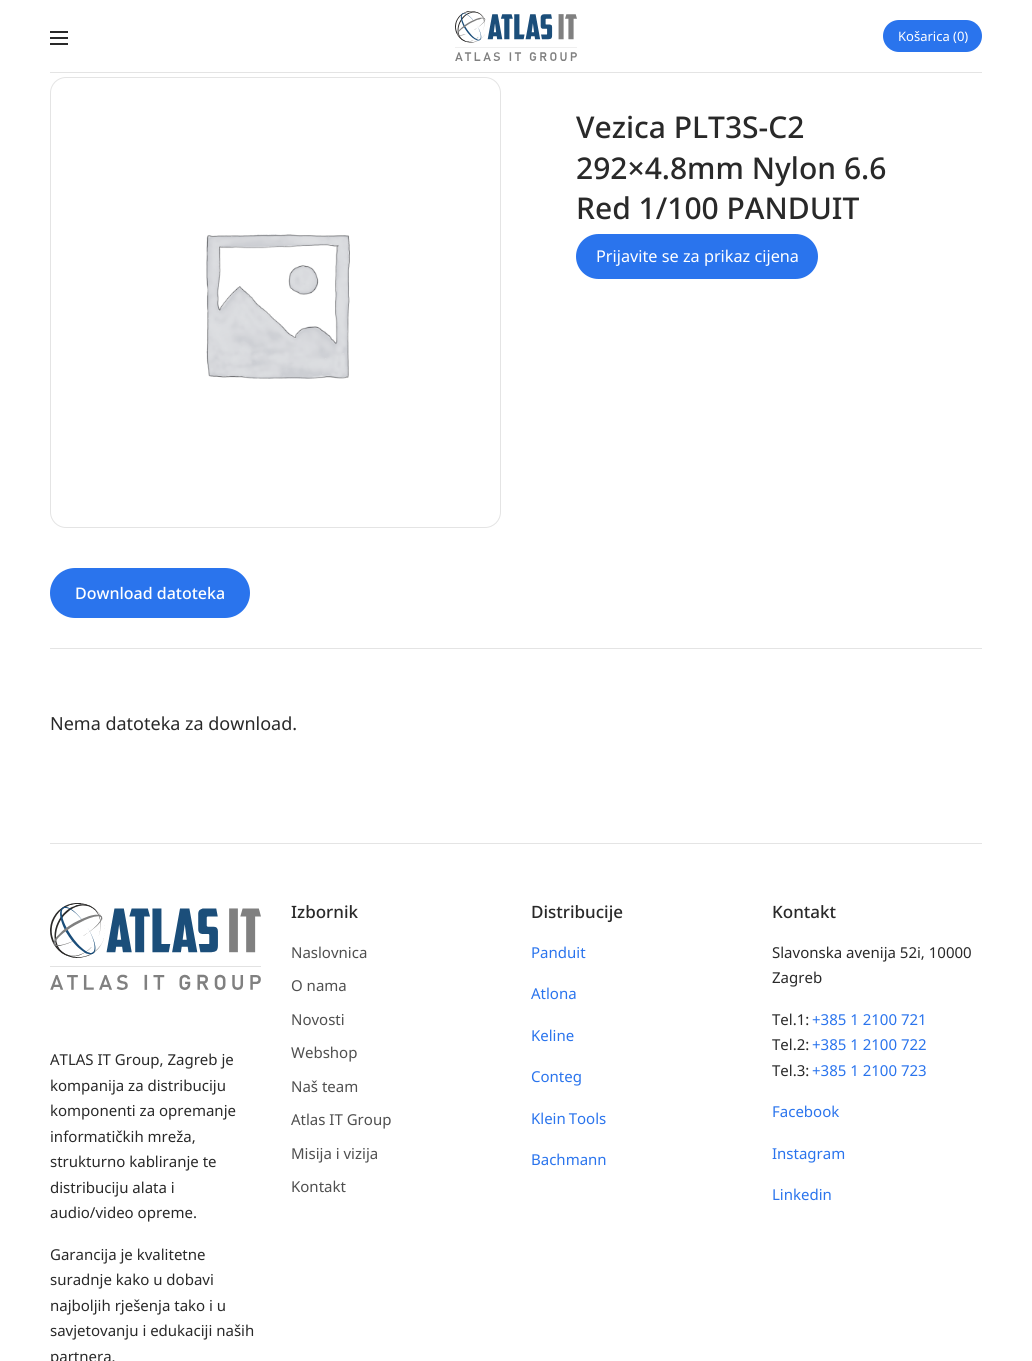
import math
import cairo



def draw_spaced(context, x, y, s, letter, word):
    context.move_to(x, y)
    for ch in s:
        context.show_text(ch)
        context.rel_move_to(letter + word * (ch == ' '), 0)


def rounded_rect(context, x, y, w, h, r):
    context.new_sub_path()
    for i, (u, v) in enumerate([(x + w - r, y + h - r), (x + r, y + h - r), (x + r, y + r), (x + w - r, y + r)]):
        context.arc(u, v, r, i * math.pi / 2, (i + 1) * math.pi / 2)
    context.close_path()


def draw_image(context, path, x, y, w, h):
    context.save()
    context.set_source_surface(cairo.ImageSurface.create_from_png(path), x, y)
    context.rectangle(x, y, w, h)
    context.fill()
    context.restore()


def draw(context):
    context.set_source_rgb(1, 1, 1)
    context.paint()
    context.set_source_rgb(41 / 255, 41 / 255, 41 / 255)
    context.rectangle(50, 31, 18, 2)
    context.fill()
    context.rectangle(50, 37, 18, 2)
    context.fill()
    context.rectangle(50, 43, 18, 2)
    context.fill()
    draw_image(context, "images/1.png", 455, 11, 122, 50)
    context.set_source_rgb(42 / 255, 116 / 255, 237 / 255)
    rounded_rect(context, 883, 20, 99, 32, 16)
    context.fill()
    context.set_source_rgb(228 / 255, 228 / 255, 228 / 255)
    context.rectangle(50, 72, 932, 1)
    context.fill()
    rounded_rect(context, 50.5, 77.5, 450, 450, 15.5)
    context.set_line_width(1)
    context.stroke()
    draw_image(context, "images/2.png", 206, 234, 144, 145)
    context.set_source_rgb(42 / 255, 116 / 255, 237 / 255)
    rounded_rect(context, 576, 234, 242, 45, 22.5)
    context.fill()
    context.set_source_rgb(228 / 255, 228 / 255, 228 / 255)
    context.rectangle(50, 648, 932, 1)
    context.fill()
    context.set_source_rgb(42 / 255, 116 / 255, 237 / 255)
    rounded_rect(context, 50, 568, 200, 50, 25)
    context.fill()
    context.set_source_rgb(228 / 255, 228 / 255, 228 / 255)
    context.rectangle(50, 843, 932, 1)
    context.fill()
    draw_image(context, "images/3.png", 50, 903, 211, 87)
    context.select_font_face("Noto Sans")
    context.set_font_size(13)
    context.set_source_rgb(1, 1, 1)
    context.move_to(898, 41)
    context.show_text("Košarica")
    context.move_to(953, 41)
    context.show_text("(0)")
    context.select_font_face("Noto Sans Medium")
    context.set_font_size(30)
    context.set_source_rgb(41 / 255, 41 / 255, 41 / 255)
    context.move_to(576, 138)
    context.show_text("Vezica PLT3S-C2")
    context.move_to(576, 179)
    context.show_text("292×4.8mm Nylon 6.6")
    context.move_to(576, 219)
    context.show_text("Red 1/100 PANDUIT")
    context.select_font_face("Noto Sans")
    context.set_font_size(16.25)
    context.set_source_rgb(1, 1, 1)
    context.move_to(596, 262)
    context.show_text("Prijavite se za prikaz cijena")
    context.select_font_face("Noto Sans Medium")
    context.set_font_size(16)
    context.move_to(75, 599)
    context.show_text("Download datoteka")
    context.select_font_face("Noto Sans")
    context.set_font_size(18)
    context.set_source_rgb(41 / 255, 41 / 255, 41 / 255)
    context.move_to(50, 730)
    context.show_text("Nema datoteka za download.")
    context.set_font_size(15)
    context.move_to(50, 1065)
    context.show_text("ATLAS IT Group, Zagreb je")
    context.move_to(50, 1091)
    context.show_text("kompanija za distribuciju")
    context.move_to(50, 1116)
    context.show_text("komponenti za opremanje")
    context.move_to(50, 1142)
    context.show_text("informatičkih mreža,")
    context.move_to(50, 1167)
    context.show_text("strukturno kabliranje te")
    context.move_to(50, 1193)
    context.show_text("distribuciju alata i")
    context.move_to(50, 1218)
    context.show_text("audio/video opreme.")
    context.move_to(50, 1260)
    context.show_text("Garancija je kvalitetne")
    context.move_to(50, 1285)
    context.show_text("suradnje kako u dobavi")
    context.move_to(50, 1311)
    context.show_text("najboljih rješenja tako i u")
    context.move_to(50, 1336)
    context.show_text("savjetovanju i edukaciji naših")
    context.move_to(50, 1362)
    context.show_text("partnera.")
    context.select_font_face("Noto Sans Medium")
    context.set_font_size(17)
    context.move_to(291, 918)
    context.show_text("Izbornik")
    context.select_font_face("Noto Sans")
    context.set_font_size(15)
    context.set_source_rgb(79 / 255, 79 / 255, 79 / 255)
    context.move_to(291, 958)
    context.show_text("Naslovnica")
    context.move_to(291, 991)
    context.show_text("O nama")
    context.move_to(291, 1025)
    context.show_text("Novosti")
    context.move_to(291, 1058)
    context.show_text("Webshop")
    context.move_to(291, 1092)
    context.show_text("Naš team")
    context.move_to(291, 1125)
    context.show_text("Atlas IT Group")
    context.move_to(291, 1159)
    context.show_text("Misija i vizija")
    context.move_to(291, 1192)
    context.show_text("Kontakt")
    context.select_font_face("Noto Sans Medium")
    context.set_font_size(17)
    context.set_source_rgb(41 / 255, 41 / 255, 41 / 255)
    context.move_to(531, 918)
    context.show_text("Distribucije")
    context.select_font_face("Noto Sans")
    context.set_font_size(15)
    context.set_source_rgb(42 / 255, 116 / 255, 237 / 255)
    context.move_to(531, 958)
    context.show_text("Panduit")
    context.move_to(531, 999)
    context.show_text("Atlona")
    context.move_to(531, 1041)
    context.show_text("Keline")
    context.move_to(531, 1082)
    context.show_text("Conteg")
    draw_spaced(context, 531, 1124, "Klein Tools", 0, -1)
    context.move_to(531, 1165)
    context.show_text("Bachmann")
    context.select_font_face("Noto Sans Medium")
    context.set_font_size(17)
    context.set_source_rgb(41 / 255, 41 / 255, 41 / 255)
    context.move_to(772, 918)
    context.show_text("Kontakt")
    context.select_font_face("Noto Sans")
    context.set_font_size(15)
    context.move_to(772, 958)
    context.show_text("Slavonska avenija 52i, 10000")
    context.move_to(772, 983)
    context.show_text("Zagreb")
    context.move_to(772, 1025)
    context.show_text("Tel.1:")
    context.set_source_rgb(42 / 255, 116 / 255, 237 / 255)
    context.move_to(812, 1025)
    context.show_text("+385 1 2100 721")
    context.set_source_rgb(41 / 255, 41 / 255, 41 / 255)
    context.move_to(772, 1050)
    context.show_text("Tel.2:")
    context.set_source_rgb(42 / 255, 116 / 255, 237 / 255)
    context.move_to(812, 1050)
    context.show_text("+385 1 2100 722")
    context.set_source_rgb(41 / 255, 41 / 255, 41 / 255)
    context.move_to(772, 1076)
    context.show_text("Tel.3:")
    context.set_source_rgb(42 / 255, 116 / 255, 237 / 255)
    context.move_to(812, 1076)
    context.show_text("+385 1 2100 723")
    context.move_to(772, 1117)
    context.show_text("Facebook")
    context.move_to(772, 1159)
    context.show_text("Instagram")
    context.move_to(772, 1200)
    context.show_text("Linkedin")


surface = cairo.ImageSurface(cairo.Format.RGB24, 1032, 1361)
context = cairo.Context(surface)
options = cairo.FontOptions()
options.set_hint_metrics(cairo.HintMetrics.OFF)
options.set_hint_style(cairo.HintStyle.NONE)
context.set_font_options(options)
context.set_miter_limit(4)
draw(context)
surface.write_to_png("out.png")
